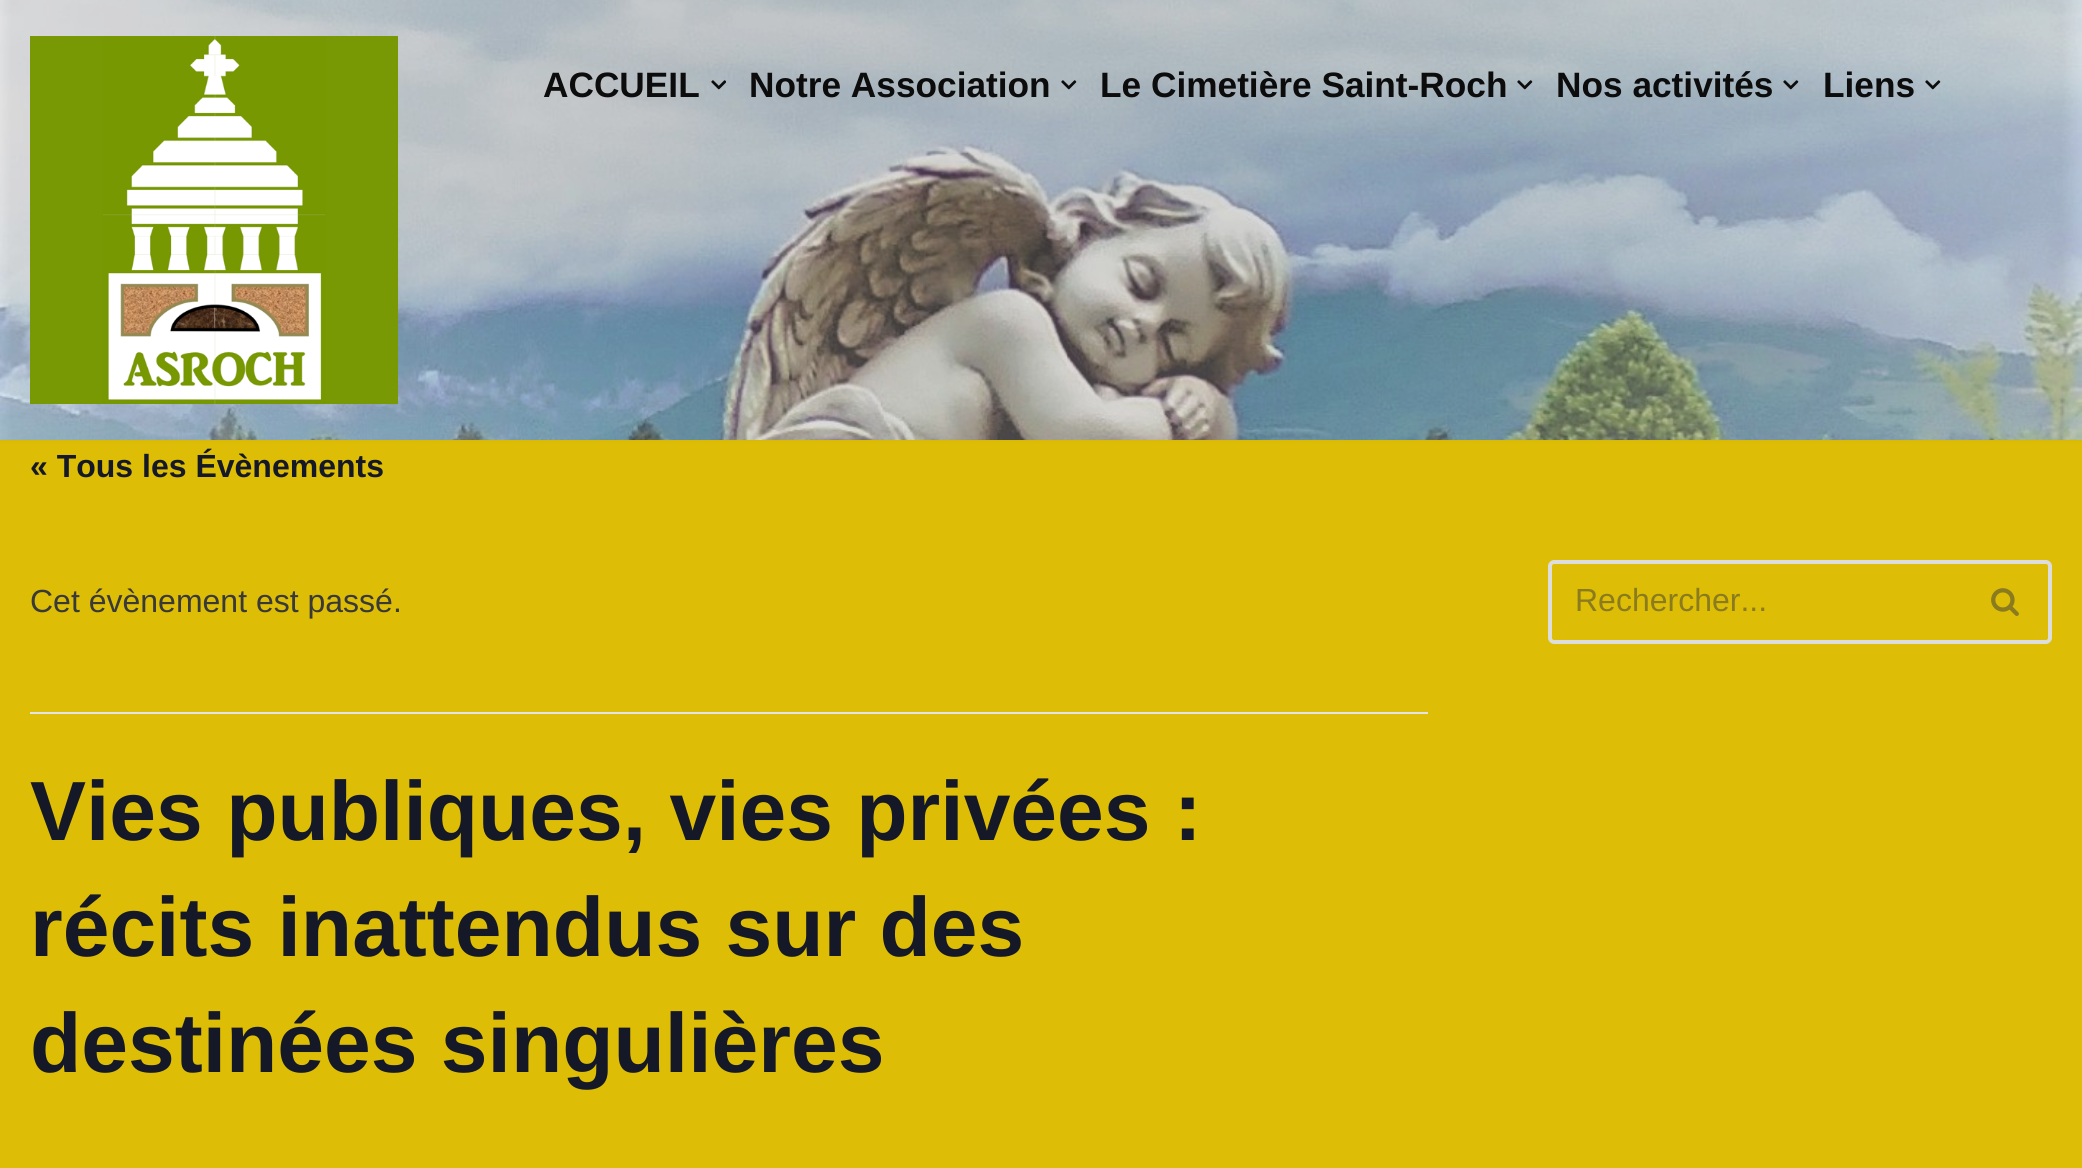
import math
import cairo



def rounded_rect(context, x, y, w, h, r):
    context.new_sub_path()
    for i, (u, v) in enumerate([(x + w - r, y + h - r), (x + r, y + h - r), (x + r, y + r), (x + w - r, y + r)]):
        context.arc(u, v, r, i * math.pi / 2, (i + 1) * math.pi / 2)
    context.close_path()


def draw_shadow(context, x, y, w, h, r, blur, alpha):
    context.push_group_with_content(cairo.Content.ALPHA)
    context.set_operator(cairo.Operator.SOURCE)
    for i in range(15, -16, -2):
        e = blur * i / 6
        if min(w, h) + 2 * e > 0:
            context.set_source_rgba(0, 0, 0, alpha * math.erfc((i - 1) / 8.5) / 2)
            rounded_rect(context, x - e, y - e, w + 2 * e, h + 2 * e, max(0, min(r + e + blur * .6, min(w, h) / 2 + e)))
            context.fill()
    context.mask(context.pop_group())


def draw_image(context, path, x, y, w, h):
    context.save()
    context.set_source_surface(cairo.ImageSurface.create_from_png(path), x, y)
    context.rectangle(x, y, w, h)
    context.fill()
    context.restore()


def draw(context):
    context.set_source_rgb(221 / 255, 189 / 255, 5 / 255)
    context.paint()
    context.set_source_rgb(0, 0, 0)
    draw_shadow(context, 0, -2, 2082, 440, 0, 3, 0.1)
    draw_image(context, "images/1.png", 0, 0, 2082, 440)
    draw_image(context, "images/2.png", 30, 36, 368, 368)
    draw_image(context, "images/3.png", 711, 80, 15, 10)
    draw_image(context, "images/4.png", 1061, 80, 16, 10)
    draw_image(context, "images/5.png", 1517, 80, 16, 10)
    draw_image(context, "images/6.png", 1783, 80, 16, 10)
    draw_image(context, "images/7.png", 1925, 80, 16, 10)
    context.set_source_rgb(228 / 255, 228 / 255, 228 / 255)
    context.rectangle(30, 712, 1398, 2)
    context.fill()
    context.set_source_rgb(221 / 255, 221 / 255, 221 / 255)
    context.set_fill_rule(cairo.FillRule.EVEN_ODD)
    context.new_path()
    context.move_to(1554, 560)
    context.line_to(1962, 560)
    context.line_to(1962, 644)
    context.line_to(1554, 644)
    context.curve_to(1551, 644, 1548, 641, 1548, 638)
    context.line_to(1548, 566)
    context.curve_to(1548, 563, 1551, 560, 1554, 560)
    context.close_path()
    context.move_to(1554, 564)
    context.line_to(1962, 564)
    context.line_to(1962, 640)
    context.line_to(1554, 640)
    context.curve_to(1553, 640, 1552, 639, 1552, 638)
    context.line_to(1552, 566)
    context.curve_to(1552, 565, 1553, 564, 1554, 564)
    context.close_path()
    context.fill()
    context.new_path()
    context.move_to(1962, 560)
    context.line_to(2046, 560)
    context.curve_to(2049, 560, 2052, 563, 2052, 566)
    context.line_to(2052, 638)
    context.curve_to(2052, 641, 2049, 644, 2046, 644)
    context.line_to(1962, 644)
    context.close_path()
    context.move_to(1962, 564)
    context.line_to(2046, 564)
    context.curve_to(2047, 564, 2048, 565, 2048, 566)
    context.line_to(2048, 638)
    context.curve_to(2048, 639, 2047, 640, 2046, 640)
    context.line_to(1962, 640)
    context.close_path()
    context.fill()
    draw_image(context, "images/8.png", 1991, 588, 28, 28)
    context.select_font_face("Liberation Sans", cairo.FontSlant.NORMAL, cairo.FontWeight.BOLD)
    context.set_font_size(35.25)
    context.set_source_rgb(12 / 255, 12 / 255, 12 / 255)
    context.move_to(543, 97)
    context.show_text("ACCUEIL")
    context.move_to(749, 97)
    context.show_text("Notre Association")
    context.move_to(1100, 97)
    context.show_text("Le Cimetière Saint-Roch")
    context.move_to(1556, 97)
    context.show_text("Nos activités")
    context.move_to(1823, 97)
    context.show_text("Liens")
    context.set_font_size(32)
    context.set_source_rgb(20 / 255, 24 / 255, 39 / 255)
    context.move_to(30, 477)
    context.show_text("« Tous les Évènements")
    context.select_font_face("Liberation Sans")
    context.set_source_rgb(57 / 255, 57 / 255, 57 / 255)
    context.move_to(30, 612)
    context.show_text("Cet évènement est passé.")
    context.select_font_face("Liberation Sans", cairo.FontSlant.NORMAL, cairo.FontWeight.BOLD)
    context.set_font_size(84)
    context.set_source_rgb(20 / 255, 24 / 255, 39 / 255)
    context.move_to(30, 840)
    context.show_text("Vies publiques, vies privées :")
    context.move_to(30, 956)
    context.show_text("récits inattendus sur des")
    context.move_to(30, 1072)
    context.show_text("destinées singulières")
    context.select_font_face("Liberation Sans")
    context.set_font_size(32)
    context.set_source_rgb(139 / 255, 123 / 255, 31 / 255)
    context.move_to(1575, 611)
    context.show_text("Rechercher...")


surface = cairo.ImageSurface(cairo.Format.RGB24, 2082, 1168)
context = cairo.Context(surface)
options = cairo.FontOptions()
options.set_hint_metrics(cairo.HintMetrics.OFF)
options.set_hint_style(cairo.HintStyle.NONE)
context.set_font_options(options)
context.set_miter_limit(4)
draw(context)
surface.write_to_png("out.png")
